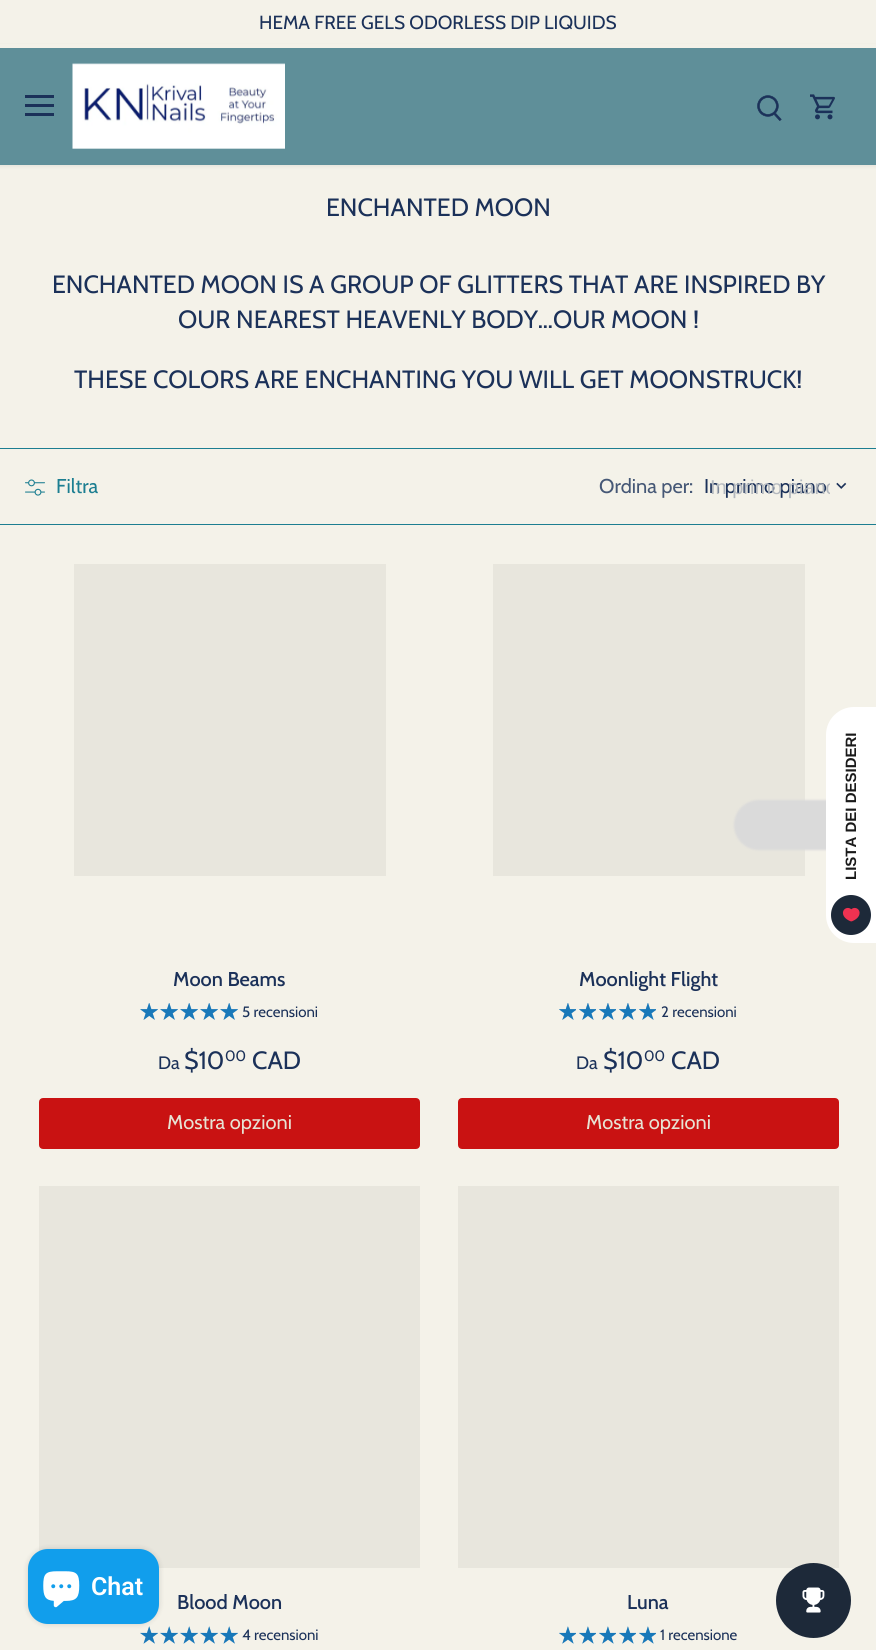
import math
import cairo



def rounded_rect(context, x, y, w, h, r):
    context.new_sub_path()
    for i, (u, v) in enumerate([(x + w - r, y + h - r), (x + r, y + h - r), (x + r, y + r), (x + w - r, y + r)]):
        context.arc(u, v, r, i * math.pi / 2, (i + 1) * math.pi / 2)
    context.close_path()


def draw_shadow(context, x, y, w, h, r, blur, alpha):
    context.push_group_with_content(cairo.Content.ALPHA)
    context.set_operator(cairo.Operator.SOURCE)
    for i in range(15, -16, -2):
        e = blur * i / 6
        if min(w, h) + 2 * e > 0:
            context.set_source_rgba(0, 0, 0, alpha * math.erfc((i - 1) / 8.5) / 2)
            rounded_rect(context, x - e, y - e, w + 2 * e, h + 2 * e, max(0, min(r + e + blur * .6, min(w, h) / 2 + e)))
            context.fill()
    context.mask(context.pop_group())


def draw_image(context, path, x, y, w, h):
    context.save()
    context.set_source_surface(cairo.ImageSurface.create_from_png(path), x, y)
    context.rectangle(x, y, w, h)
    context.fill()
    context.restore()


def draw(context):
    context.set_source_rgb(244 / 255, 242 / 255, 233 / 255)
    context.paint()
    context.set_source_rgb(0, 0, 0)
    draw_shadow(context, -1, 46, 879, 120, 0, 2, 0.08)
    context.set_source_rgb(244 / 255, 242 / 255, 233 / 255)
    context.rectangle(0, 44, 876, 4)
    context.fill()
    context.set_source_rgb(95 / 255, 143 / 255, 153 / 255)
    context.rectangle(0, 48, 876, 117)
    context.fill()
    context.set_source_rgb(27 / 255, 49 / 255, 89 / 255)
    context.rectangle(25, 95, 29, 3)
    context.fill()
    context.rectangle(25, 104, 29, 3)
    context.fill()
    context.rectangle(25, 113, 29, 3)
    context.fill()
    draw_image(context, "images/1.png", 72, 63, 213, 86)
    draw_image(context, "images/2.png", 757, 95, 25, 26)
    draw_image(context, "images/3.png", 810, 94, 25, 26)
    context.set_source_rgb(28 / 255, 126 / 255, 145 / 255)
    context.rectangle(0, 448, 876, 1)
    context.fill()
    context.rectangle(0, 524, 876, 1)
    context.fill()
    draw_image(context, "images/4.png", 25, 479, 20, 17)
    draw_image(context, "images/5.png", 836, 482, 11, 7)
    context.set_source_rgb(232 / 255, 230 / 255, 221 / 255)
    context.rectangle(74, 564, 312, 312)
    context.fill()
    draw_image(context, "images/6.png", 140, 1003, 18, 17)
    draw_image(context, "images/6.png", 160, 1003, 18, 17)
    draw_image(context, "images/6.png", 180, 1003, 18, 17)
    draw_image(context, "images/6.png", 200, 1003, 18, 17)
    draw_image(context, "images/6.png", 220, 1003, 18, 17)
    draw_image(context, "images/7.png", 140, 1003, 18, 17)
    draw_image(context, "images/7.png", 160, 1003, 18, 17)
    draw_image(context, "images/7.png", 180, 1003, 18, 17)
    draw_image(context, "images/7.png", 200, 1003, 18, 17)
    draw_image(context, "images/7.png", 220, 1003, 18, 17)
    context.set_source_rgb(201 / 255, 18 / 255, 18 / 255)
    rounded_rect(context, 40.5, 1099.5, 378, 48, 2.5)
    context.fill_preserve()
    context.set_line_width(3)
    context.stroke()
    context.set_source_rgb(232 / 255, 230 / 255, 221 / 255)
    context.rectangle(493, 564, 312, 312)
    context.fill()
    draw_image(context, "images/8.png", 559, 1003, 17, 17)
    draw_image(context, "images/8.png", 579, 1003, 17, 17)
    draw_image(context, "images/8.png", 599, 1003, 17, 17)
    draw_image(context, "images/8.png", 619, 1003, 17, 17)
    draw_image(context, "images/8.png", 639, 1003, 17, 17)
    draw_image(context, "images/9.png", 559, 1003, 17, 17)
    draw_image(context, "images/9.png", 579, 1003, 17, 17)
    draw_image(context, "images/9.png", 599, 1003, 17, 17)
    draw_image(context, "images/9.png", 619, 1003, 17, 17)
    draw_image(context, "images/9.png", 639, 1003, 17, 17)
    context.set_source_rgb(201 / 255, 18 / 255, 18 / 255)
    rounded_rect(context, 459.5, 1099.5, 378, 48, 2.5)
    context.fill_preserve()
    context.stroke()
    context.set_source_rgb(232 / 255, 230 / 255, 221 / 255)
    context.rectangle(39, 1186, 381, 382)
    context.fill()
    draw_image(context, "images/10.png", 140, 1626, 18, 18)
    draw_image(context, "images/10.png", 160, 1626, 18, 18)
    draw_image(context, "images/10.png", 180, 1626, 18, 18)
    draw_image(context, "images/10.png", 200, 1626, 18, 18)
    draw_image(context, "images/10.png", 220, 1626, 18, 18)
    draw_image(context, "images/11.png", 140, 1626, 18, 18)
    draw_image(context, "images/11.png", 160, 1626, 18, 18)
    draw_image(context, "images/11.png", 180, 1626, 18, 18)
    draw_image(context, "images/11.png", 200, 1626, 18, 18)
    draw_image(context, "images/11.png", 220, 1626, 18, 18)
    context.rectangle(458, 1186, 381, 382)
    context.fill()
    draw_image(context, "images/12.png", 559, 1626, 17, 18)
    draw_image(context, "images/12.png", 579, 1626, 17, 18)
    draw_image(context, "images/12.png", 599, 1626, 17, 18)
    draw_image(context, "images/12.png", 619, 1626, 17, 18)
    draw_image(context, "images/12.png", 639, 1626, 17, 18)
    draw_image(context, "images/13.png", 559, 1626, 17, 18)
    draw_image(context, "images/13.png", 579, 1626, 17, 18)
    draw_image(context, "images/13.png", 599, 1626, 17, 18)
    draw_image(context, "images/13.png", 619, 1626, 17, 18)
    draw_image(context, "images/13.png", 639, 1626, 17, 18)
    context.set_source_rgb(218 / 255, 218 / 255, 218 / 255)
    draw_shadow(context, 734, 800, 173, 50, 28, 1, 1)
    context.set_source_rgb(1, 1, 1)
    context.new_path()
    context.move_to(826, 915)
    context.line_to(826, 735)
    context.curve_to(826, 719, 839, 707, 854, 707)
    context.line_to(876, 707)
    context.line_to(876, 943)
    context.line_to(854, 943)
    context.curve_to(839, 943, 826, 931, 826, 915)
    context.close_path()
    context.fill()
    context.set_source_rgb(29 / 255, 41 / 255, 57 / 255)
    context.arc(851, 915, 20, 0, 2 * math.pi)
    context.fill()
    draw_image(context, "images/14.png", 842, 907, 18, 15)
    context.arc(813.5, 1600.5, 37.5, 0, 2 * math.pi)
    context.fill()
    draw_image(context, "images/15.png", 802, 1587, 23, 26)
    context.set_source_rgb(0, 0, 0)
    draw_shadow(context, 28, 1549, 131, 75, 20, 3, 0.15)
    context.set_source_rgb(17 / 255, 158 / 255, 236 / 255)
    rounded_rect(context, 28, 1549, 131, 75, 20)
    context.fill()
    draw_image(context, "images/16.png", 43, 1571, 37, 37)
    context.select_font_face("Cabin")
    context.set_font_size(19)
    context.set_source_rgb(27 / 255, 49 / 255, 89 / 255)
    context.move_to(259, 29)
    context.show_text("HEMA FREE GELS ODORLESS DIP LIQUIDS")
    context.set_font_size(25)
    context.move_to(326, 216)
    context.show_text("ENCHANTED MOON")
    context.move_to(52, 293)
    context.show_text("ENCHANTED MOON IS A GROUP OF GLITTERS THAT ARE INSPIRED BY")
    context.move_to(178, 328)
    context.show_text("OUR NEAREST HEAVENLY BODY…OUR MOON !")
    context.move_to(74, 388)
    context.show_text("THESE COLORS ARE ENCHANTING YOU WILL GET MOONSTRUCK!")
    context.set_font_size(20)
    context.set_source_rgb(28 / 255, 126 / 255, 145 / 255)
    context.move_to(56, 493)
    context.show_text("Filtra")
    context.set_source_rgb(70 / 255, 88 / 255, 118 / 255)
    context.move_to(599, 493)
    context.show_text("Ordina per:")
    context.set_source_rgb(27 / 255, 49 / 255, 89 / 255)
    context.move_to(704, 493)
    context.show_text("In primo piano")
    context.save()
    context.rectangle(710, 475, 120, 24)
    context.clip()
    context.select_font_face("Liberation Sans")
    context.set_source_rgb(179 / 255, 184 / 255, 190 / 255)
    context.move_to(710, 494)
    context.show_text("In primo piano")
    context.restore()
    context.select_font_face("Cabin Medium")
    context.move_to(173, 986)
    context.show_text("Moon Beams")
    context.select_font_face("Cabin")
    context.set_font_size(15)
    context.move_to(242, 1017)
    context.show_text("5 recensioni")
    context.set_font_size(18)
    context.move_to(158, 1069)
    context.show_text("Da")
    context.set_font_size(25)
    context.move_to(184, 1069)
    context.show_text("$10")
    context.set_font_size(15)
    context.move_to(225, 1061)
    context.show_text("00")
    context.set_font_size(25)
    context.move_to(252, 1069)
    context.show_text("CAD")
    context.set_font_size(20)
    context.set_source_rgb(231 / 255, 227 / 255, 212 / 255)
    context.move_to(167, 1129)
    context.show_text("Mostra opzioni")
    context.select_font_face("Cabin Medium")
    context.set_source_rgb(27 / 255, 49 / 255, 89 / 255)
    context.move_to(579, 986)
    context.show_text("Moonlight Flight")
    context.select_font_face("Cabin")
    context.set_font_size(15)
    context.move_to(661, 1017)
    context.show_text("2 recensioni")
    context.set_font_size(18)
    context.move_to(576, 1069)
    context.show_text("Da")
    context.set_font_size(25)
    context.move_to(603, 1069)
    context.show_text("$10")
    context.set_font_size(15)
    context.move_to(644, 1061)
    context.show_text("00")
    context.set_font_size(25)
    context.move_to(671, 1069)
    context.show_text("CAD")
    context.set_font_size(20)
    context.set_source_rgb(231 / 255, 227 / 255, 212 / 255)
    context.move_to(586, 1129)
    context.show_text("Mostra opzioni")
    context.select_font_face("Cabin Medium")
    context.set_source_rgb(27 / 255, 49 / 255, 89 / 255)
    context.move_to(177, 1609)
    context.show_text("Blood Moon")
    context.select_font_face("Cabin")
    context.set_font_size(15)
    context.move_to(242, 1640)
    context.show_text("4 recensioni")
    context.select_font_face("Cabin Medium")
    context.set_font_size(20)
    context.move_to(627, 1609)
    context.show_text("Luna")
    context.select_font_face("Cabin")
    context.set_font_size(15)
    context.move_to(660, 1640)
    context.show_text("1 recensione")
    context.select_font_face("Liberation Sans", cairo.FontSlant.NORMAL, cairo.FontWeight.BOLD)
    context.set_source_rgb(26 / 255, 26 / 255, 26 / 255)
    context.save()
    context.translate(856, 880)
    context.rotate(-90 * math.pi / 180)
    context.move_to(0, 0)
    context.show_text("LISTA DEI DESIDERI")
    context.restore()
    context.select_font_face("Roboto SemiBold")
    context.set_font_size(25)
    context.set_source_rgb(1, 1, 1)
    context.move_to(91, 1595)
    context.show_text("Chat")


surface = cairo.ImageSurface(cairo.Format.RGB24, 876, 1650)
context = cairo.Context(surface)
options = cairo.FontOptions()
options.set_hint_metrics(cairo.HintMetrics.OFF)
options.set_hint_style(cairo.HintStyle.NONE)
context.set_font_options(options)
context.set_miter_limit(4)
draw(context)
surface.write_to_png("out.png")
